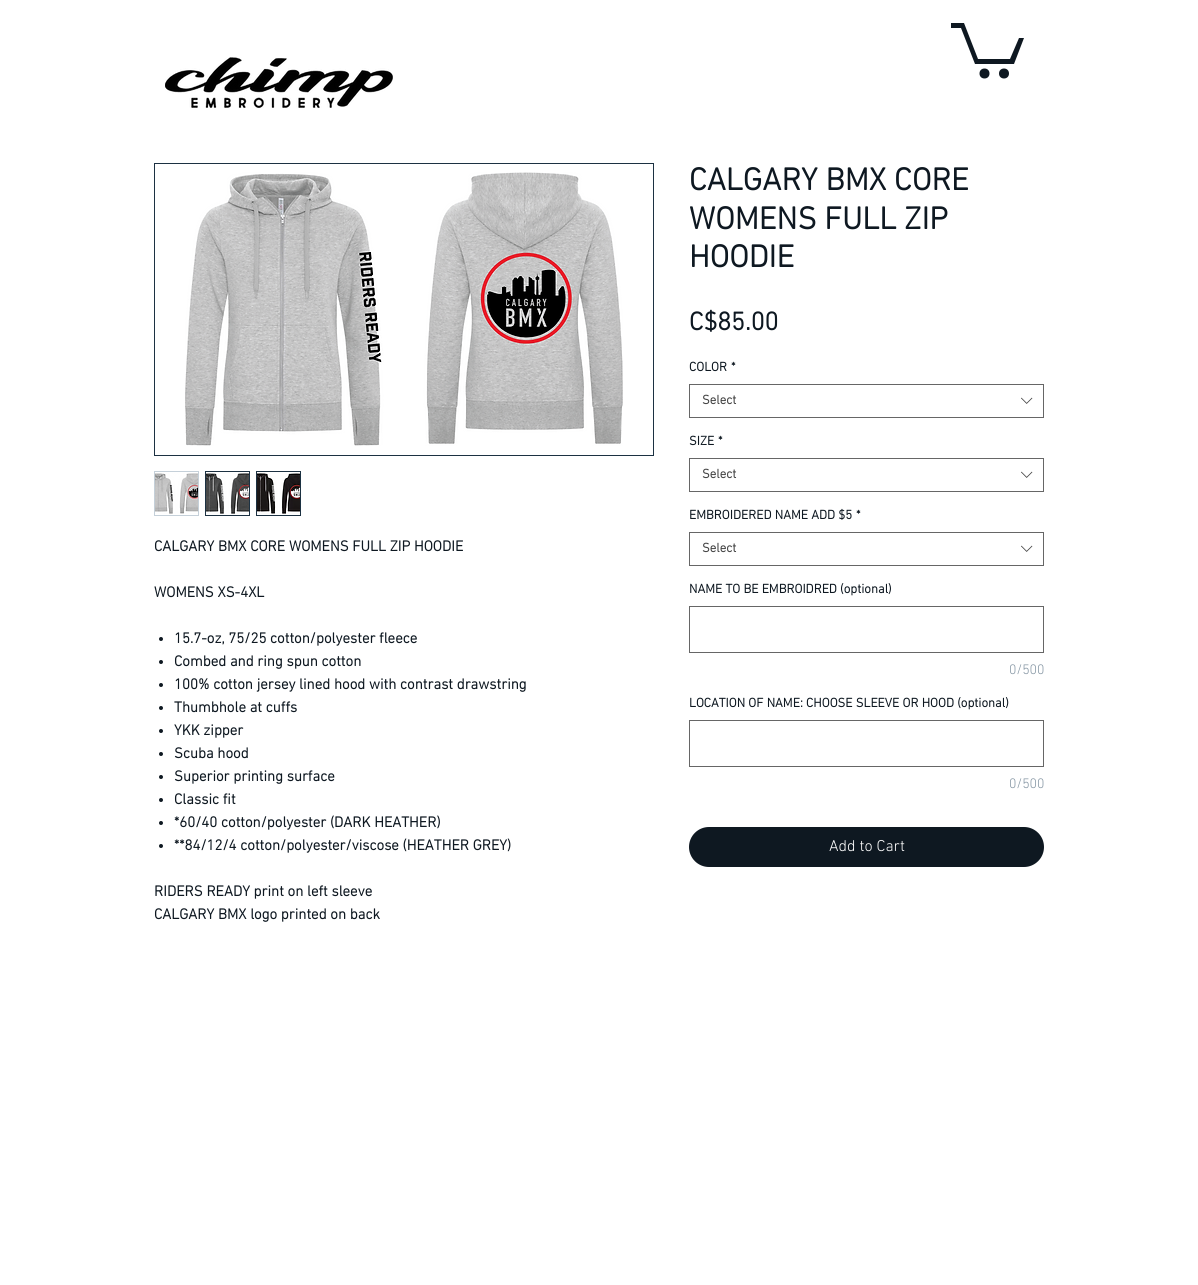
import math
import cairo



def rounded_rect(context, x, y, w, h, r):
    context.new_sub_path()
    for i, (u, v) in enumerate([(x + w - r, y + h - r), (x + r, y + h - r), (x + r, y + r), (x + w - r, y + r)]):
        context.arc(u, v, r, i * math.pi / 2, (i + 1) * math.pi / 2)
    context.close_path()


def draw_image(context, path, x, y, w, h):
    context.save()
    context.set_source_surface(cairo.ImageSurface.create_from_png(path), x, y)
    context.rectangle(x, y, w, h)
    context.fill()
    context.restore()


def draw(context):
    context.set_source_rgb(1, 1, 1)
    context.paint()
    draw_image(context, "images/1.png", 165, 57, 228, 51)
    context.set_source_rgb(14 / 255, 24 / 255, 33 / 255)
    context.new_path()
    context.move_to(1024, 38)
    context.line_to(1014, 64)
    context.line_to(975, 64)
    context.line_to(961, 28)
    context.line_to(951, 28)
    context.line_to(951, 23)
    context.line_to(964, 23)
    context.line_to(978, 59)
    context.line_to(1010, 59)
    context.line_to(1019, 38)
    context.fill()
    context.arc(1004, 73.5, 5, 0, 2 * math.pi)
    context.fill()
    context.arc(984.5, 73.5, 5, 0, 2 * math.pi)
    context.fill()
    context.rectangle(154.5, 163.5, 499, 292)
    context.set_source_rgb(28 / 255, 49 / 255, 66 / 255)
    context.set_line_width(1)
    context.stroke()
    draw_image(context, "images/2.png", 185, 172, 438, 274)
    context.rectangle(154.5, 471.5, 44, 44)
    context.set_source_rgb(197 / 255, 208 / 255, 217 / 255)
    context.stroke()
    draw_image(context, "images/3.png", 155, 473, 43, 41)
    context.rectangle(205.5, 471.5, 44, 44)
    context.set_source_rgb(28 / 255, 49 / 255, 66 / 255)
    context.stroke()
    draw_image(context, "images/4.png", 206, 473, 43, 41)
    context.rectangle(256.5, 471.5, 44, 44)
    context.stroke()
    draw_image(context, "images/5.png", 257, 473, 43, 41)
    context.set_source_rgb(14 / 255, 24 / 255, 33 / 255)
    context.arc(161, 639, 2, 0, 2 * math.pi)
    context.fill()
    context.arc(161, 662, 2, 0, 2 * math.pi)
    context.fill()
    context.arc(161, 685, 2, 0, 2 * math.pi)
    context.fill()
    context.arc(161, 708, 2, 0, 2 * math.pi)
    context.fill()
    context.arc(161, 731, 2, 0, 2 * math.pi)
    context.fill()
    context.arc(161, 754, 2, 0, 2 * math.pi)
    context.fill()
    context.arc(161, 777, 2, 0, 2 * math.pi)
    context.fill()
    context.arc(161, 800, 2, 0, 2 * math.pi)
    context.fill()
    context.arc(161, 823, 2, 0, 2 * math.pi)
    context.fill()
    context.arc(161, 846, 2, 0, 2 * math.pi)
    context.fill()
    context.rectangle(689.5, 384.5, 354, 33)
    context.set_source_rgb(102 / 255, 102 / 255, 102 / 255)
    context.stroke()
    draw_image(context, "images/6.png", 1021, 397, 12, 7)
    context.rectangle(689.5, 458.5, 354, 33)
    context.stroke()
    draw_image(context, "images/6.png", 1021, 471, 12, 7)
    context.rectangle(689.5, 532.5, 354, 33)
    context.stroke()
    draw_image(context, "images/6.png", 1021, 545, 12, 7)
    context.rectangle(689.5, 606.5, 354, 46)
    context.stroke()
    context.rectangle(689.5, 720.5, 354, 46)
    context.stroke()
    context.set_source_rgb(14 / 255, 24 / 255, 33 / 255)
    rounded_rect(context, 689, 827, 355, 40, 20)
    context.fill()
    context.select_font_face("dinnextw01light", cairo.FontSlant.NORMAL, cairo.FontWeight.BOLD)
    context.set_font_size(15)
    context.move_to(154, 551)
    context.show_text("CALGARY BMX CORE WOMENS FULL ZIP HOODIE")
    context.move_to(154, 597)
    context.show_text("WOMENS XS-4XL")
    context.move_to(174, 643)
    context.show_text("15.7-oz, 75/25 cotton/polyester fleece")
    context.move_to(174, 666)
    context.show_text("Combed and ring spun cotton")
    context.move_to(174, 689)
    context.show_text("100% cotton jersey lined hood with contrast drawstring")
    context.move_to(174, 712)
    context.show_text("Thumbhole at cuffs")
    context.move_to(174, 735)
    context.show_text("YKK zipper")
    context.move_to(174, 758)
    context.show_text("Scuba hood")
    context.move_to(174, 781)
    context.show_text("Superior printing surface")
    context.move_to(174, 804)
    context.show_text("Classic fit")
    context.move_to(174, 827)
    context.show_text("*60/40 cotton/polyester (DARK HEATHER)")
    context.move_to(174, 850)
    context.show_text("**84/12/4 cotton/polyester/viscose (HEATHER GREY)")
    context.move_to(154, 896)
    context.show_text("RIDERS READY print on left sleeve")
    context.move_to(154, 919)
    context.show_text("CALGARY BMX logo printed on back")
    context.set_font_size(32)
    context.move_to(689, 190)
    context.show_text("CALGARY BMX CORE")
    context.move_to(689, 229)
    context.show_text("WOMENS FULL ZIP")
    context.move_to(689, 267)
    context.show_text("HOODIE")
    context.set_font_size(26)
    context.move_to(689, 330)
    context.show_text("C$85.00")
    context.set_font_size(13)
    context.move_to(689, 371)
    context.show_text("COLOR")
    context.move_to(731, 371)
    context.show_text("*")
    context.set_source_rgb(68 / 255, 68 / 255, 68 / 255)
    context.move_to(702, 404)
    context.show_text("Select")
    context.set_source_rgb(14 / 255, 24 / 255, 33 / 255)
    context.move_to(689, 445)
    context.show_text("SIZE")
    context.move_to(718, 445)
    context.show_text("*")
    context.set_source_rgb(68 / 255, 68 / 255, 68 / 255)
    context.move_to(702, 478)
    context.show_text("Select")
    context.set_source_rgb(14 / 255, 24 / 255, 33 / 255)
    context.move_to(689, 519)
    context.show_text("EMBROIDERED NAME ADD $5")
    context.move_to(856, 519)
    context.show_text("*")
    context.set_source_rgb(68 / 255, 68 / 255, 68 / 255)
    context.move_to(702, 552)
    context.show_text("Select")
    context.set_source_rgb(14 / 255, 24 / 255, 33 / 255)
    context.move_to(689, 593)
    context.show_text("NAME TO BE EMBROIDRED (optional)")
    context.select_font_face("dinnextw01light Light")
    context.set_font_size(14)
    context.set_source_rgb(130 / 255, 147 / 255, 161 / 255)
    context.move_to(1009, 674)
    context.show_text("0/500")
    context.select_font_face("dinnextw01light", cairo.FontSlant.NORMAL, cairo.FontWeight.BOLD)
    context.set_font_size(13)
    context.set_source_rgb(14 / 255, 24 / 255, 33 / 255)
    context.move_to(689, 707)
    context.show_text("LOCATION OF NAME: CHOOSE SLEEVE OR HOOD (optional)")
    context.select_font_face("dinnextw01light Light")
    context.set_font_size(14)
    context.set_source_rgb(130 / 255, 147 / 255, 161 / 255)
    context.move_to(1009, 788)
    context.show_text("0/500")
    context.set_font_size(16)
    context.set_source_rgb(1, 1, 1)
    context.move_to(829, 851)
    context.show_text("Add to Cart")


surface = cairo.ImageSurface(cairo.Format.RGB24, 1198, 1285)
context = cairo.Context(surface)
options = cairo.FontOptions()
options.set_hint_metrics(cairo.HintMetrics.OFF)
options.set_hint_style(cairo.HintStyle.NONE)
context.set_font_options(options)
context.set_miter_limit(4)
draw(context)
surface.write_to_png("out.png")
